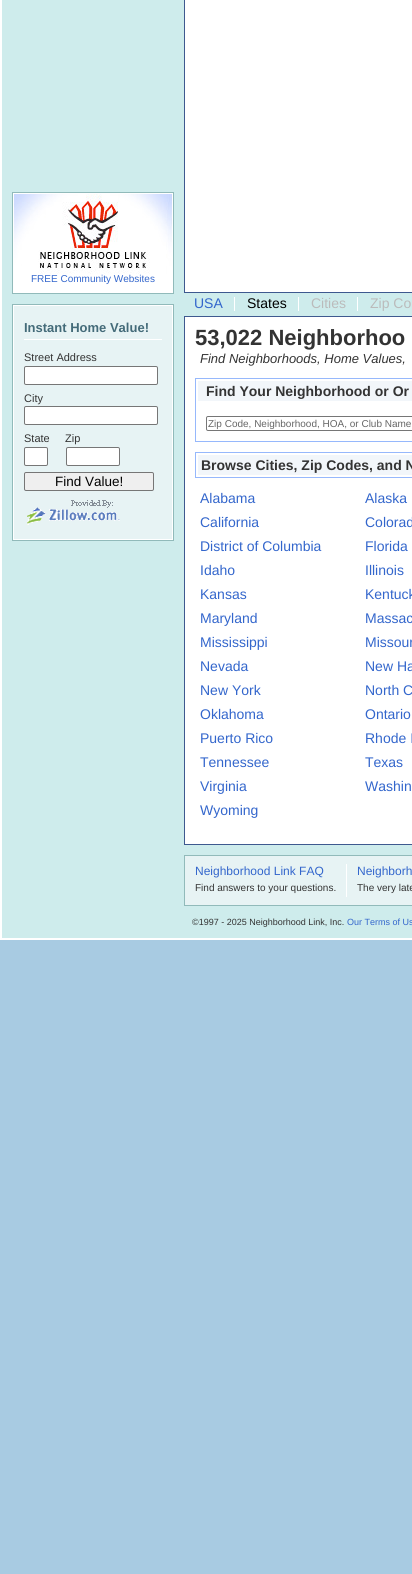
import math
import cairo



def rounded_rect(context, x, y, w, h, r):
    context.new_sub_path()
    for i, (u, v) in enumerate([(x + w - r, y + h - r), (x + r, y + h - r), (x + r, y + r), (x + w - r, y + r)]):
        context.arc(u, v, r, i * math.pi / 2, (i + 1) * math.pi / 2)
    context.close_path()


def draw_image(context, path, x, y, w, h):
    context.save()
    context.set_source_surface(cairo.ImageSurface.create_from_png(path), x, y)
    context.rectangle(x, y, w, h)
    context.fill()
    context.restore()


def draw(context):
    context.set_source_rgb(168 / 255, 203 / 255, 226 / 255)
    context.paint()
    context.set_source_rgb(206 / 255, 236 / 255, 236 / 255)
    context.rectangle(2, 0, 410, 938)
    context.fill()
    context.set_source_rgb(1, 1, 1)
    context.rectangle(0, 938, 412, 2)
    context.fill()
    context.rectangle(0, 0, 2, 940)
    context.fill()
    context.rectangle(185, 0, 227, 292)
    context.fill()
    context.set_source_rgb(62 / 255, 89 / 255, 143 / 255)
    context.rectangle(184, 292, 228, 1)
    context.fill()
    context.rectangle(184, 0, 1, 293)
    context.fill()
    context.set_source_rgb(1, 1, 1)
    context.rectangle(12.5, 192.5, 161, 101)
    context.fill_preserve()
    context.set_source_rgb(145 / 255, 186 / 255, 186 / 255)
    context.set_line_width(1)
    context.stroke()
    draw_image(context, "images/1.png", 14, 194, 158, 80)
    context.set_source_rgb(231 / 255, 243 / 255, 244 / 255)
    context.rectangle(14, 306, 158, 233)
    context.fill()
    context.rectangle(12.5, 304.5, 161, 236)
    context.set_source_rgb(145 / 255, 186 / 255, 186 / 255)
    context.stroke()
    context.rectangle(13.5, 305.5, 159, 234)
    context.set_source_rgb(1, 1, 1)
    context.stroke()
    context.rectangle(24, 339, 138, 1)
    context.fill()
    rounded_rect(context, 24.5, 366.5, 133, 18, 1.5)
    context.fill_preserve()
    context.set_source_rgb(118 / 255, 118 / 255, 118 / 255)
    context.stroke()
    context.set_source_rgb(1, 1, 1)
    rounded_rect(context, 24.5, 406.5, 133, 18, 1.5)
    context.fill_preserve()
    context.set_source_rgb(118 / 255, 118 / 255, 118 / 255)
    context.stroke()
    context.set_source_rgb(1, 1, 1)
    rounded_rect(context, 24.5, 447.5, 23, 18, 1.5)
    context.fill_preserve()
    context.set_source_rgb(118 / 255, 118 / 255, 118 / 255)
    context.stroke()
    context.set_source_rgb(1, 1, 1)
    rounded_rect(context, 66.5, 447.5, 53, 18, 1.5)
    context.fill_preserve()
    context.set_source_rgb(118 / 255, 118 / 255, 118 / 255)
    context.stroke()
    context.set_source_rgb(239 / 255, 239 / 255, 239 / 255)
    rounded_rect(context, 24.5, 472.5, 129, 18, 1.5)
    context.fill_preserve()
    context.set_source_rgb(118 / 255, 118 / 255, 118 / 255)
    context.stroke()
    draw_image(context, "images/2.png", 27, 500, 93, 25)
    context.set_source_rgb(1, 1, 1)
    context.rectangle(234, 297, 1, 14)
    context.fill()
    context.rectangle(298, 297, 1, 14)
    context.fill()
    context.rectangle(357, 297, 1, 14)
    context.fill()
    context.rectangle(184.5, 316.5, 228, 528)
    context.fill_preserve()
    context.set_source_rgb(62 / 255, 89 / 255, 143 / 255)
    context.stroke()
    context.rectangle(195.5, 378.5, 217, 63)
    context.set_source_rgb(150 / 255, 184 / 255, 252 / 255)
    context.stroke()
    context.set_source_rgb(242 / 255, 246 / 255, 250 / 255)
    context.rectangle(198, 381, 214, 20)
    context.fill()
    rounded_rect(context, 206.5, 416.5, 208, 14, 1.5)
    context.set_source_rgb(118 / 255, 118 / 255, 118 / 255)
    context.stroke()
    context.set_source_rgb(242 / 255, 246 / 255, 250 / 255)
    context.rectangle(198, 455, 214, 20)
    context.fill()
    context.rectangle(195.5, 452.5, 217, 25)
    context.set_source_rgb(150 / 255, 184 / 255, 252 / 255)
    context.stroke()
    context.set_source_rgb(231 / 255, 243 / 255, 244 / 255)
    context.rectangle(184.5, 855.5, 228, 50)
    context.fill_preserve()
    context.set_source_rgb(145 / 255, 186 / 255, 186 / 255)
    context.stroke()
    context.set_source_rgb(1, 1, 1)
    context.rectangle(346, 864, 1, 33)
    context.fill()
    context.select_font_face("Liberation Sans")
    context.set_font_size(10)
    context.set_source_rgb(51 / 255, 102 / 255, 204 / 255)
    context.move_to(31, 282)
    context.show_text("FREE Community Websites")
    context.select_font_face("Liberation Sans", cairo.FontSlant.NORMAL, cairo.FontWeight.BOLD)
    context.set_font_size(13)
    context.set_source_rgb(68 / 255, 107 / 255, 121 / 255)
    context.move_to(24, 332)
    context.show_text("Instant Home Value!")
    context.select_font_face("Liberation Sans")
    context.set_font_size(11)
    context.set_source_rgb(51 / 255, 51 / 255, 51 / 255)
    context.move_to(24, 361)
    context.show_text("Street Address")
    context.move_to(24, 402)
    context.show_text("City")
    context.move_to(24, 442)
    context.show_text("State")
    context.move_to(65, 442)
    context.show_text("Zip")
    context.set_font_size(13.5)
    context.set_source_rgb(0, 0, 0)
    context.move_to(55, 486)
    context.show_text("Find Value!")
    context.set_font_size(14)
    context.set_source_rgb(51 / 255, 102 / 255, 204 / 255)
    context.move_to(194, 308)
    context.show_text("USA")
    context.set_source_rgb(0, 0, 0)
    context.move_to(247, 308)
    context.show_text("States")
    context.set_source_rgb(187 / 255, 187 / 255, 187 / 255)
    context.move_to(311, 308)
    context.show_text("Cities")
    context.move_to(370, 308)
    context.show_text("Zip Co")
    context.select_font_face("Liberation Sans", cairo.FontSlant.NORMAL, cairo.FontWeight.BOLD)
    context.set_font_size(22)
    context.set_source_rgb(51 / 255, 51 / 255, 51 / 255)
    context.move_to(195, 345)
    context.show_text("53,022 Neighborhoo")
    context.select_font_face("Liberation Sans", cairo.FontSlant.ITALIC)
    context.set_font_size(13)
    context.move_to(200, 363)
    context.show_text("Find Neighborhoods, Home Values,")
    context.select_font_face("Liberation Sans", cairo.FontSlant.NORMAL, cairo.FontWeight.BOLD)
    context.set_font_size(14)
    context.move_to(206, 396)
    context.show_text("Find Your Neighborhood or Or")
    context.select_font_face("Liberation Sans")
    context.set_font_size(10)
    context.set_source_rgb(102 / 255, 102 / 255, 102 / 255)
    context.move_to(208, 427)
    context.show_text("Zip Code, Neighborhood, HOA, or Club Name")
    context.select_font_face("Liberation Sans", cairo.FontSlant.NORMAL, cairo.FontWeight.BOLD)
    context.set_font_size(14)
    context.set_source_rgb(51 / 255, 51 / 255, 51 / 255)
    context.move_to(201, 470)
    context.show_text("Browse Cities, Zip Codes, and N")
    context.select_font_face("Liberation Sans")
    context.set_source_rgb(51 / 255, 102 / 255, 204 / 255)
    context.move_to(200, 503)
    context.show_text("Alabama")
    context.move_to(365, 503)
    context.show_text("Alaska")
    context.move_to(200, 527)
    context.show_text("California")
    context.move_to(365, 527)
    context.show_text("Colorad")
    context.move_to(200, 551)
    context.show_text("District of Columbia")
    context.move_to(365, 551)
    context.show_text("Florida")
    context.move_to(200, 575)
    context.show_text("Idaho")
    context.move_to(365, 575)
    context.show_text("Illinois")
    context.move_to(200, 599)
    context.show_text("Kansas")
    context.move_to(365, 599)
    context.show_text("Kentuck")
    context.move_to(200, 623)
    context.show_text("Maryland")
    context.move_to(365, 623)
    context.show_text("Massac")
    context.move_to(200, 647)
    context.show_text("Mississippi")
    context.move_to(365, 647)
    context.show_text("Missour")
    context.move_to(200, 671)
    context.show_text("Nevada")
    context.move_to(365, 671)
    context.show_text("New Ha")
    context.move_to(200, 695)
    context.show_text("New York")
    context.move_to(365, 695)
    context.show_text("North C")
    context.move_to(200, 719)
    context.show_text("Oklahoma")
    context.move_to(365, 719)
    context.show_text("Ontario")
    context.move_to(200, 743)
    context.show_text("Puerto Rico")
    context.move_to(365, 743)
    context.show_text("Rhode I")
    context.move_to(200, 767)
    context.show_text("Tennessee")
    context.move_to(365, 767)
    context.show_text("Texas")
    context.move_to(200, 791)
    context.show_text("Virginia")
    context.move_to(365, 791)
    context.show_text("Washin")
    context.move_to(200, 815)
    context.show_text("Wyoming")
    context.set_font_size(12)
    context.move_to(195, 875)
    context.show_text("Neighborhood Link FAQ")
    context.set_font_size(10)
    context.set_source_rgb(51 / 255, 51 / 255, 51 / 255)
    context.move_to(195, 891)
    context.show_text("Find answers to your questions.")
    context.set_font_size(12)
    context.set_source_rgb(51 / 255, 102 / 255, 204 / 255)
    context.move_to(357, 875)
    context.show_text("Neighborh")
    context.set_font_size(10)
    context.set_source_rgb(51 / 255, 51 / 255, 51 / 255)
    context.move_to(357, 891)
    context.show_text("The very late")
    context.set_font_size(9)
    context.move_to(192, 925)
    context.show_text("©1997 - 2025 Neighborhood Link, Inc.")
    context.set_source_rgb(51 / 255, 102 / 255, 204 / 255)
    context.move_to(347, 925)
    context.show_text("Our Terms of Us")


surface = cairo.ImageSurface(cairo.Format.RGB24, 412, 1574)
context = cairo.Context(surface)
options = cairo.FontOptions()
options.set_hint_metrics(cairo.HintMetrics.OFF)
options.set_hint_style(cairo.HintStyle.NONE)
context.set_font_options(options)
context.set_miter_limit(4)
draw(context)
surface.write_to_png("out.png")
